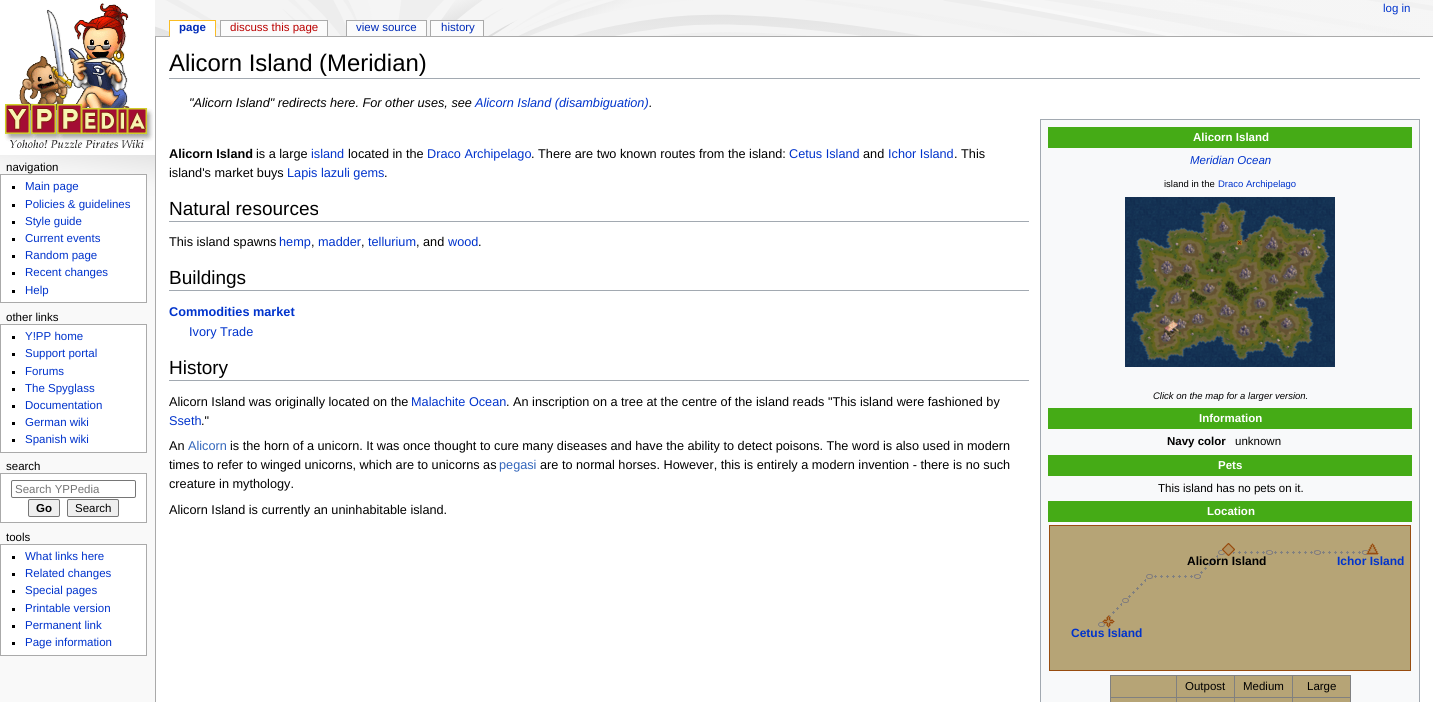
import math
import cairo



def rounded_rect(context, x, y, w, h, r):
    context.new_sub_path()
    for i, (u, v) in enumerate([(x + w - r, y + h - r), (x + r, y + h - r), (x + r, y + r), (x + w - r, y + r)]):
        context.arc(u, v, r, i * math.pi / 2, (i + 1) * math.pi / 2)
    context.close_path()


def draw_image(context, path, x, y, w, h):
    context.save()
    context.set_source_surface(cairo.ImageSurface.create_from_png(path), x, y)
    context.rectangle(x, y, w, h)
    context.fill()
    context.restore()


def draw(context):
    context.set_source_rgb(249 / 255, 249 / 255, 249 / 255)
    context.paint()
    draw_image(context, "images/1.png", 0, 0, 1433, 210)
    draw_image(context, "images/2.png", 0, 0, 155, 155)
    context.set_source_rgb(250 / 255, 189 / 255, 35 / 255)
    context.rectangle(169, 20, 47, 1)
    context.fill()
    context.rectangle(215, 20, 1, 16)
    context.fill()
    context.rectangle(169, 20, 1, 16)
    context.fill()
    context.set_source_rgb(170 / 255, 170 / 255, 170 / 255)
    context.rectangle(155, 36, 1278, 1)
    context.fill()
    context.set_source_rgb(1, 1, 1)
    context.rectangle(170, 21, 45, 16)
    context.fill()
    context.set_source_rgb(170 / 255, 170 / 255, 170 / 255)
    context.rectangle(220, 20, 108, 1)
    context.fill()
    context.rectangle(327, 20, 1, 16)
    context.fill()
    context.rectangle(220, 20, 1, 16)
    context.fill()
    context.set_source_rgb(251 / 255, 251 / 255, 251 / 255)
    context.rectangle(221, 21, 106, 15)
    context.fill()
    context.set_source_rgb(170 / 255, 170 / 255, 170 / 255)
    context.rectangle(346, 20, 81, 1)
    context.fill()
    context.rectangle(426, 20, 1, 16)
    context.fill()
    context.rectangle(346, 20, 1, 16)
    context.fill()
    context.set_source_rgb(251 / 255, 251 / 255, 251 / 255)
    context.rectangle(347, 21, 79, 15)
    context.fill()
    context.set_source_rgb(170 / 255, 170 / 255, 170 / 255)
    context.rectangle(430, 20, 54, 1)
    context.fill()
    context.rectangle(483, 20, 1, 16)
    context.fill()
    context.rectangle(430, 20, 1, 16)
    context.fill()
    context.set_source_rgb(251 / 255, 251 / 255, 251 / 255)
    context.rectangle(431, 21, 52, 15)
    context.fill()
    context.set_source_rgb(1, 1, 1)
    context.rectangle(0.5, 174.5, 146, 128)
    context.fill_preserve()
    context.set_source_rgb(170 / 255, 170 / 255, 170 / 255)
    context.set_line_width(1)
    context.stroke()
    context.set_source_rgb(0, 0, 0)
    context.rectangle(12, 186, 3, 3)
    context.fill()
    context.rectangle(12, 204, 3, 3)
    context.fill()
    context.rectangle(12, 221, 3, 3)
    context.fill()
    context.rectangle(12, 238, 3, 3)
    context.fill()
    context.rectangle(12, 255, 3, 3)
    context.fill()
    context.rectangle(12, 272, 3, 3)
    context.fill()
    context.rectangle(12, 290, 3, 3)
    context.fill()
    context.set_source_rgb(1, 1, 1)
    context.rectangle(0.5, 324.5, 146, 128)
    context.fill_preserve()
    context.set_source_rgb(170 / 255, 170 / 255, 170 / 255)
    context.stroke()
    context.set_source_rgb(0, 0, 0)
    context.rectangle(12, 336, 3, 3)
    context.fill()
    context.rectangle(12, 353, 3, 3)
    context.fill()
    context.rectangle(12, 371, 3, 3)
    context.fill()
    context.rectangle(12, 388, 3, 3)
    context.fill()
    context.rectangle(12, 405, 3, 3)
    context.fill()
    context.rectangle(12, 422, 3, 3)
    context.fill()
    context.rectangle(12, 439, 3, 3)
    context.fill()
    context.set_source_rgb(1, 1, 1)
    context.rectangle(0.5, 473.5, 146, 49)
    context.fill_preserve()
    context.set_source_rgb(170 / 255, 170 / 255, 170 / 255)
    context.stroke()
    rounded_rect(context, 11.5, 480.5, 124, 17, 1.5)
    context.set_source_rgb(118 / 255, 118 / 255, 118 / 255)
    context.stroke()
    context.set_source_rgb(239 / 255, 239 / 255, 239 / 255)
    rounded_rect(context, 28.5, 499.5, 31, 17, 1.5)
    context.fill_preserve()
    context.set_source_rgb(118 / 255, 118 / 255, 118 / 255)
    context.stroke()
    context.set_source_rgb(239 / 255, 239 / 255, 239 / 255)
    rounded_rect(context, 67.5, 499.5, 51, 17, 1.5)
    context.fill_preserve()
    context.set_source_rgb(118 / 255, 118 / 255, 118 / 255)
    context.stroke()
    context.set_source_rgb(1, 1, 1)
    context.rectangle(0.5, 544.5, 146, 111)
    context.fill_preserve()
    context.set_source_rgb(170 / 255, 170 / 255, 170 / 255)
    context.stroke()
    context.set_source_rgb(0, 0, 0)
    context.rectangle(12, 556, 3, 3)
    context.fill()
    context.rectangle(12, 573, 3, 3)
    context.fill()
    context.rectangle(12, 590, 3, 3)
    context.fill()
    context.rectangle(12, 608, 3, 3)
    context.fill()
    context.rectangle(12, 625, 3, 3)
    context.fill()
    context.rectangle(12, 642, 3, 3)
    context.fill()
    context.set_source_rgb(1, 1, 1)
    context.rectangle(156, 37, 1277, 665)
    context.fill()
    context.set_source_rgb(170 / 255, 170 / 255, 170 / 255)
    context.rectangle(155, 36, 1, 666)
    context.fill()
    context.set_source_rgb(162 / 255, 169 / 255, 177 / 255)
    context.rectangle(169, 78, 1251, 1)
    context.fill()
    context.set_source_rgb(248 / 255, 249 / 255, 250 / 255)
    context.rectangle(1040.5, 119.5, 379, 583)
    context.fill_preserve()
    context.set_source_rgb(162 / 255, 169 / 255, 177 / 255)
    context.stroke()
    context.set_source_rgb(69 / 255, 171 / 255, 22 / 255)
    context.rectangle(1048, 127, 364, 21)
    context.fill()
    draw_image(context, "images/3.png", 1125, 197, 210, 170)
    context.rectangle(1048, 408, 364, 21)
    context.fill()
    context.rectangle(1048, 455, 364, 21)
    context.fill()
    context.rectangle(1048, 501, 364, 21)
    context.fill()
    context.set_source_rgb(182 / 255, 164 / 255, 118 / 255)
    context.rectangle(1049.5, 525.5, 361, 145)
    context.fill_preserve()
    context.set_source_rgb(152 / 255, 76 / 255, 15 / 255)
    context.stroke()
    context.set_source_rgb(128 / 255, 128 / 255, 128 / 255)
    context.rectangle(1200, 555, 18, 19)
    context.fill()
    draw_image(context, "images/4.png", 1199, 550, 26, 25)
    context.rectangle(1233, 551, 136, 3)
    context.fill()
    draw_image(context, "images/7.png", 1225, 550, 48, 5)
    draw_image(context, "images/5.png", 1222, 543, 13, 13)
    draw_image(context, "images/8.png", 1321, 550, 47, 5)
    draw_image(context, "images/6.png", 1366, 543, 13, 12)
    draw_image(context, "images/7.png", 1273, 550, 48, 5)
    context.rectangle(1128, 579, 18, 19)
    context.fill()
    context.rectangle(1146, 575, 55, 3)
    context.fill()
    draw_image(context, "images/4.png", 1127, 574, 26, 25)
    draw_image(context, "images/7.png", 1153, 574, 48, 5)
    context.rectangle(1109, 603, 13, 14)
    context.fill()
    draw_image(context, "images/9.png", 1098, 598, 31, 29)
    draw_image(context, "images/10.png", 1102, 615, 13, 13)
    context.set_source_rgb(182 / 255, 164 / 255, 118 / 255)
    context.rectangle(1111, 676, 239, 26)
    context.fill()
    context.set_source_rgb(128 / 255, 128 / 255, 128 / 255)
    context.rectangle(1110, 675, 241, 1)
    context.fill()
    context.rectangle(1350, 675, 1, 27)
    context.fill()
    context.rectangle(1110, 675, 1, 27)
    context.fill()
    context.rectangle(1292, 697, 59, 1)
    context.fill()
    context.rectangle(1292, 697, 1, 5)
    context.fill()
    context.rectangle(1234, 697, 59, 1)
    context.fill()
    context.rectangle(1234, 697, 1, 5)
    context.fill()
    context.rectangle(1176, 697, 59, 1)
    context.fill()
    context.rectangle(1176, 697, 1, 5)
    context.fill()
    context.rectangle(1110, 697, 67, 1)
    context.fill()
    context.rectangle(1176, 675, 1, 23)
    context.fill()
    context.rectangle(1234, 675, 1, 23)
    context.fill()
    context.rectangle(1292, 675, 1, 23)
    context.fill()
    context.set_source_rgb(162 / 255, 169 / 255, 177 / 255)
    context.rectangle(169, 221, 860, 1)
    context.fill()
    context.rectangle(169, 290, 860, 1)
    context.fill()
    context.rectangle(169, 380, 860, 1)
    context.fill()
    context.select_font_face("Liberation Sans")
    context.set_font_size(11.5)
    context.set_source_rgb(0, 51 / 255, 204 / 255)
    context.move_to(1383, 12)
    context.show_text("log in")
    context.select_font_face("Liberation Sans", cairo.FontSlant.NORMAL, cairo.FontWeight.BOLD)
    context.set_source_rgb(0, 43 / 255, 184 / 255)
    context.move_to(179, 31)
    context.show_text("page")
    context.select_font_face("Liberation Sans")
    context.set_source_rgb(186 / 255, 0, 0)
    context.move_to(230, 31)
    context.show_text("discuss this page")
    context.set_source_rgb(0, 43 / 255, 184 / 255)
    context.move_to(356, 31)
    context.show_text("view source")
    context.move_to(441, 31)
    context.show_text("history")
    context.set_source_rgb(0, 0, 0)
    context.move_to(6, 171)
    context.show_text("navigation")
    context.set_source_rgb(0, 51 / 255, 204 / 255)
    context.move_to(25, 190)
    context.show_text("Main page")
    context.move_to(25, 208)
    context.show_text("Policies & guidelines")
    context.move_to(25, 225)
    context.show_text("Style guide")
    context.move_to(25, 242)
    context.show_text("Current events")
    context.move_to(25, 259)
    context.show_text("Random page")
    context.move_to(25, 276)
    context.show_text("Recent changes")
    context.move_to(25, 294)
    context.show_text("Help")
    context.set_source_rgb(0, 0, 0)
    context.move_to(6, 321)
    context.show_text("other links")
    context.set_source_rgb(0, 51 / 255, 204 / 255)
    context.move_to(25, 340)
    context.show_text("Y!PP home")
    context.move_to(25, 357)
    context.show_text("Support portal")
    context.move_to(25, 375)
    context.show_text("Forums")
    context.move_to(25, 392)
    context.show_text("The Spyglass")
    context.move_to(25, 409)
    context.show_text("Documentation")
    context.move_to(25, 426)
    context.show_text("German wiki")
    context.move_to(25, 443)
    context.show_text("Spanish wiki")
    context.set_source_rgb(0, 0, 0)
    context.move_to(6, 470)
    context.show_text("search")
    context.set_source_rgb(117 / 255, 117 / 255, 117 / 255)
    context.move_to(15, 493)
    context.show_text("Search YPPedia")
    context.select_font_face("Liberation Sans", cairo.FontSlant.NORMAL, cairo.FontWeight.BOLD)
    context.set_source_rgb(0, 0, 0)
    context.move_to(36, 512)
    context.show_text("Go")
    context.select_font_face("Liberation Sans")
    context.move_to(75, 512)
    context.show_text("Search")
    context.move_to(6, 541)
    context.show_text("tools")
    context.set_source_rgb(0, 51 / 255, 204 / 255)
    context.move_to(25, 560)
    context.show_text("What links here")
    context.move_to(25, 577)
    context.show_text("Related changes")
    context.move_to(25, 594)
    context.show_text("Special pages")
    context.move_to(25, 612)
    context.show_text("Printable version")
    context.move_to(25, 629)
    context.show_text("Permanent link")
    context.move_to(25, 646)
    context.show_text("Page information")
    context.set_font_size(23.9)
    context.set_source_rgb(0, 0, 0)
    context.move_to(169, 71)
    context.show_text("Alicorn Island (Meridian)")
    context.select_font_face("Liberation Sans", cairo.FontSlant.ITALIC)
    context.set_font_size(12.7)
    context.move_to(189, 107)
    context.show_text("\"Alicorn Island\" redirects here. For other uses, see")
    context.set_source_rgb(0, 51 / 255, 204 / 255)
    context.move_to(475, 107)
    context.show_text("Alicorn Island (disambiguation)")
    context.set_source_rgb(0, 0, 0)
    context.move_to(649, 107)
    context.show_text(".")
    context.select_font_face("Liberation Sans", cairo.FontSlant.NORMAL, cairo.FontWeight.BOLD)
    context.move_to(169, 158)
    context.show_text("Alicorn Island")
    context.select_font_face("Liberation Sans")
    context.move_to(256, 158)
    context.show_text("is a large")
    context.set_source_rgb(0, 51 / 255, 204 / 255)
    context.move_to(311, 158)
    context.show_text("island")
    context.set_source_rgb(0, 0, 0)
    context.move_to(348, 158)
    context.show_text("located in the")
    context.set_source_rgb(0, 51 / 255, 204 / 255)
    context.move_to(427, 158)
    context.show_text("Draco Archipelago")
    context.set_source_rgb(0, 0, 0)
    context.move_to(531, 158)
    context.show_text(". There are two known routes from the island:")
    context.set_source_rgb(0, 51 / 255, 204 / 255)
    context.move_to(789, 158)
    context.show_text("Cetus Island")
    context.set_source_rgb(0, 0, 0)
    context.move_to(863, 158)
    context.show_text("and")
    context.set_source_rgb(0, 51 / 255, 204 / 255)
    context.move_to(888, 158)
    context.show_text("Ichor Island")
    context.set_source_rgb(0, 0, 0)
    context.move_to(954, 158)
    context.show_text(". This")
    context.move_to(169, 177)
    context.show_text("island's market buys")
    context.set_source_rgb(0, 51 / 255, 204 / 255)
    context.move_to(287, 177)
    context.show_text("Lapis lazuli gems")
    context.set_source_rgb(0, 0, 0)
    context.move_to(384, 177)
    context.show_text(".")
    context.select_font_face("Liberation Sans", cairo.FontSlant.NORMAL, cairo.FontWeight.BOLD)
    context.set_font_size(11.5)
    context.set_source_rgb(1, 1, 1)
    context.move_to(1193, 141)
    context.show_text("Alicorn Island")
    context.select_font_face("Liberation Sans", cairo.FontSlant.ITALIC)
    context.set_source_rgb(0, 51 / 255, 204 / 255)
    context.move_to(1190, 164)
    context.show_text("Meridian Ocean")
    context.select_font_face("Liberation Sans")
    context.set_font_size(9.5)
    context.set_source_rgb(0, 0, 0)
    context.move_to(1164, 187)
    context.show_text("island in the")
    context.set_source_rgb(0, 51 / 255, 204 / 255)
    context.move_to(1218, 187)
    context.show_text("Draco Archipelago")
    context.select_font_face("Liberation Sans", cairo.FontSlant.ITALIC)
    context.set_source_rgb(0, 0, 0)
    context.move_to(1153, 399)
    context.show_text("Click on the map for a larger version.")
    context.select_font_face("Liberation Sans", cairo.FontSlant.NORMAL, cairo.FontWeight.BOLD)
    context.set_font_size(11.5)
    context.set_source_rgb(1, 1, 1)
    context.move_to(1199, 422)
    context.show_text("Information")
    context.set_source_rgb(0, 0, 0)
    context.move_to(1167, 445)
    context.show_text("Navy color")
    context.select_font_face("Liberation Sans")
    context.move_to(1235, 445)
    context.show_text("unknown")
    context.select_font_face("Liberation Sans", cairo.FontSlant.NORMAL, cairo.FontWeight.BOLD)
    context.set_source_rgb(1, 1, 1)
    context.move_to(1218, 469)
    context.show_text("Pets")
    context.select_font_face("Liberation Sans")
    context.set_source_rgb(0, 0, 0)
    context.move_to(1158, 492)
    context.show_text("This island has no pets on it.")
    context.select_font_face("Liberation Sans", cairo.FontSlant.NORMAL, cairo.FontWeight.BOLD)
    context.set_source_rgb(1, 1, 1)
    context.move_to(1207, 515)
    context.show_text("Location")
    context.set_font_size(12)
    context.set_source_rgb(0, 0, 0)
    context.move_to(1187, 565)
    context.show_text("Alicorn Island")
    context.set_source_rgb(0, 51 / 255, 204 / 255)
    context.move_to(1337, 565)
    context.show_text("Ichor Island")
    context.move_to(1071, 637)
    context.show_text("Cetus Island")
    context.select_font_face("Liberation Sans")
    context.set_font_size(11.5)
    context.set_source_rgb(0, 0, 0)
    context.move_to(1185, 690)
    context.show_text("Outpost")
    context.move_to(1243, 690)
    context.show_text("Medium")
    context.move_to(1307, 690)
    context.show_text("Large")
    context.set_font_size(19)
    context.move_to(169, 215)
    context.show_text("Natural resources")
    context.set_font_size(12.7)
    context.move_to(169, 246)
    context.show_text("This island spawns")
    context.set_source_rgb(0, 51 / 255, 204 / 255)
    context.move_to(279, 246)
    context.show_text("hemp")
    context.set_source_rgb(0, 0, 0)
    context.move_to(311, 246)
    context.show_text(",")
    context.set_source_rgb(0, 51 / 255, 204 / 255)
    context.move_to(318, 246)
    context.show_text("madder")
    context.set_source_rgb(0, 0, 0)
    context.move_to(361, 246)
    context.show_text(",")
    context.set_source_rgb(0, 51 / 255, 204 / 255)
    context.move_to(368, 246)
    context.show_text("tellurium")
    context.set_source_rgb(0, 0, 0)
    context.move_to(416, 246)
    context.show_text(", and")
    context.set_source_rgb(0, 51 / 255, 204 / 255)
    context.move_to(448, 246)
    context.show_text("wood")
    context.set_source_rgb(0, 0, 0)
    context.move_to(478, 246)
    context.show_text(".")
    context.set_font_size(19)
    context.move_to(169, 284)
    context.show_text("Buildings")
    context.select_font_face("Liberation Sans", cairo.FontSlant.NORMAL, cairo.FontWeight.BOLD)
    context.set_font_size(12.7)
    context.set_source_rgb(0, 51 / 255, 204 / 255)
    context.move_to(169, 316)
    context.show_text("Commodities market")
    context.select_font_face("Liberation Sans")
    context.move_to(189, 336)
    context.show_text("Ivory Trade")
    context.set_font_size(19)
    context.set_source_rgb(0, 0, 0)
    context.move_to(169, 374)
    context.show_text("History")
    context.set_font_size(12.7)
    context.move_to(169, 406)
    context.show_text("Alicorn Island was originally located on the")
    context.set_source_rgb(0, 51 / 255, 204 / 255)
    context.move_to(411, 406)
    context.show_text("Malachite Ocean")
    context.set_source_rgb(0, 0, 0)
    context.move_to(506, 406)
    context.show_text(". An inscription on a tree at the centre of the island reads \"This island were fashioned by")
    context.set_source_rgb(0, 51 / 255, 204 / 255)
    context.move_to(169, 425)
    context.show_text("Sseth")
    context.set_source_rgb(0, 0, 0)
    context.move_to(201, 425)
    context.show_text(".\"")
    context.move_to(169, 450)
    context.show_text("An")
    context.set_source_rgb(51 / 255, 102 / 255, 187 / 255)
    context.move_to(188, 450)
    context.show_text("Alicorn")
    context.set_source_rgb(0, 0, 0)
    context.move_to(230, 450)
    context.show_text("is the horn of a unicorn. It was once thought to cure many diseases and have the ability to detect poisons. The word is also used in modern")
    context.move_to(169, 469)
    context.show_text("times to refer to winged unicorns, which are to unicorns as")
    context.set_source_rgb(51 / 255, 102 / 255, 187 / 255)
    context.move_to(499, 469)
    context.show_text("pegasi")
    context.set_source_rgb(0, 0, 0)
    context.move_to(540, 469)
    context.show_text("are to normal horses. However, this is entirely a modern invention - there is no such")
    context.move_to(169, 488)
    context.show_text("creature in mythology.")
    context.move_to(169, 514)
    context.show_text("Alicorn Island is currently an uninhabitable island.")


surface = cairo.ImageSurface(cairo.Format.RGB24, 1433, 702)
context = cairo.Context(surface)
options = cairo.FontOptions()
options.set_hint_metrics(cairo.HintMetrics.OFF)
options.set_hint_style(cairo.HintStyle.NONE)
context.set_font_options(options)
context.set_miter_limit(4)
draw(context)
surface.write_to_png("out.png")
